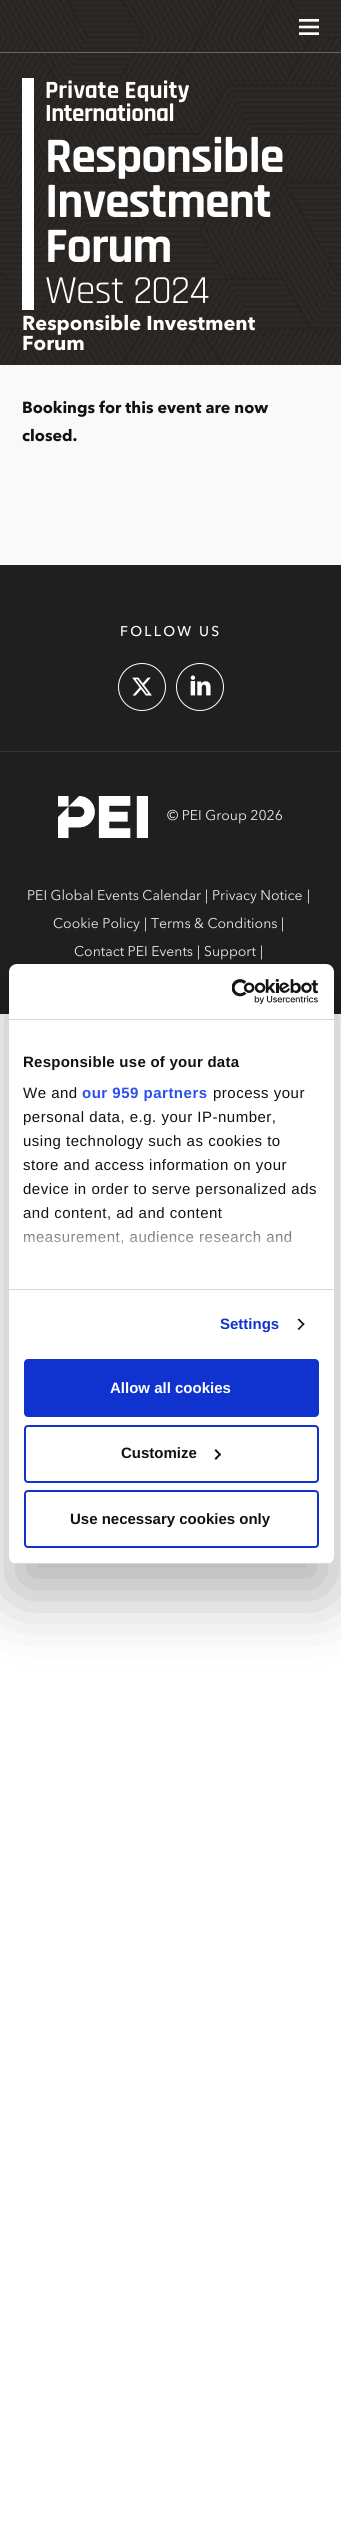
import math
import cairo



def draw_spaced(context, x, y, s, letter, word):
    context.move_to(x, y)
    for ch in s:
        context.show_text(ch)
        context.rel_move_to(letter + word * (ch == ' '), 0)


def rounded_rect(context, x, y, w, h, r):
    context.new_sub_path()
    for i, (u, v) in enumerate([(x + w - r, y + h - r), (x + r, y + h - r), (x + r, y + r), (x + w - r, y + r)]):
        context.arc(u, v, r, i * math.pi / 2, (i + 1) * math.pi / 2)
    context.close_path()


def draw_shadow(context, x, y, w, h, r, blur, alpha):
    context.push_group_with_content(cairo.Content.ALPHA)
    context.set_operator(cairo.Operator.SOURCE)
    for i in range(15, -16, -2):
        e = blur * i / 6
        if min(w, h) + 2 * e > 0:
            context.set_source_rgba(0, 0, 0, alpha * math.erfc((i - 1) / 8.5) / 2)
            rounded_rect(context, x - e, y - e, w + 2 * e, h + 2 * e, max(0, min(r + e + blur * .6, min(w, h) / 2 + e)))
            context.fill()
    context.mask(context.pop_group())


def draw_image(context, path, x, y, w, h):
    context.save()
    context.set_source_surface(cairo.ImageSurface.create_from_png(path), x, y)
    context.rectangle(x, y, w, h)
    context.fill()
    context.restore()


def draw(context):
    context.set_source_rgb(1, 1, 1)
    context.paint()
    draw_image(context, "images/2.png", 0, 0, 341, 365)
    context.set_source_rgba(1, 1, 1, 0.3)
    context.rectangle(0, 52, 341, 1)
    context.fill()
    draw_image(context, "images/1.png", 299, 19, 20, 16)
    context.set_source_rgb(249 / 255, 249 / 255, 249 / 255)
    context.rectangle(0, 365, 341, 200)
    context.fill()
    context.set_source_rgb(1, 1, 1)
    context.rectangle(22, 78, 12, 232)
    context.fill()
    context.set_source_rgb(31 / 255, 31 / 255, 31 / 255)
    context.rectangle(0, 565, 341, 449)
    context.fill()
    context.arc(142, 687, 23.5, 0, 2 * math.pi)
    context.set_source_rgb(1, 1, 1)
    context.set_line_width(1)
    context.stroke()
    draw_image(context, "images/3.png", 132, 677, 20, 19)
    context.arc(200, 687, 23.5, 0, 2 * math.pi)
    context.stroke()
    draw_image(context, "images/4.png", 190, 675, 21, 21)
    context.set_source_rgb(53 / 255, 53 / 255, 53 / 255)
    context.rectangle(0, 751, 341, 1)
    context.fill()
    draw_image(context, "images/5.png", 58, 796, 90, 42)
    context.set_source_rgb(0, 0, 0)
    draw_shadow(context, 9, 996, 325, 600, 8, 34, 0.3)
    context.set_source_rgb(1, 1, 1)
    rounded_rect(context, 9, 964, 325, 600, 8)
    context.fill()
    context.set_source_rgb(214 / 255, 214 / 255, 214 / 255)
    context.rectangle(9, 1019, 325, 1)
    context.fill()
    draw_image(context, "images/6.png", 232, 979, 87, 25)
    context.rectangle(9, 1289, 325, 1)
    context.fill()
    context.set_source_rgb(20 / 255, 20 / 255, 20 / 255)
    context.new_path()
    context.move_to(299, 1318.5)
    context.line_to(304.5, 1324)
    context.line_to(303.5, 1325.5)
    context.line_to(297.5, 1319.5)
    context.close_path()
    context.fill()
    context.new_path()
    context.move_to(303.5, 1323)
    context.line_to(304.5, 1324)
    context.line_to(299, 1330)
    context.line_to(297.5, 1329)
    context.close_path()
    context.fill()
    context.save()
    rounded_rect(context, 9, 964, 325, 600, 8)
    context.clip()
    context.set_source_rgb(214 / 255, 214 / 255, 214 / 255)
    context.rectangle(9, 1563, 325, 1)
    context.fill()
    context.restore()
    context.set_source_rgb(16 / 255, 50 / 255, 207 / 255)
    rounded_rect(context, 25, 1360, 293, 56, 3)
    context.fill_preserve()
    context.set_line_width(2)
    context.stroke()
    rounded_rect(context, 25, 1426, 293, 56, 3)
    context.stroke()
    context.set_source_rgb(20 / 255, 20 / 255, 20 / 255)
    context.new_path()
    context.move_to(216, 1449)
    context.line_to(221, 1454.5)
    context.line_to(220, 1456)
    context.line_to(214.5, 1450.5)
    context.close_path()
    context.fill()
    context.new_path()
    context.move_to(220, 1453)
    context.line_to(221, 1454.5)
    context.line_to(216, 1460)
    context.line_to(214.5, 1458.5)
    context.close_path()
    context.fill()
    rounded_rect(context, 25, 1491, 293, 56, 3)
    context.set_source_rgb(16 / 255, 50 / 255, 207 / 255)
    context.stroke()
    context.select_font_face("Rajdhani", cairo.FontSlant.NORMAL, cairo.FontWeight.BOLD)
    context.set_font_size(25)
    context.set_source_rgb(1, 1, 1)
    context.move_to(45, 98)
    context.show_text("Private Equity")
    draw_spaced(context, 45, 121, "International", -0.5, 0)
    context.set_font_size(50)
    draw_spaced(context, 45, 172, "Responsible", -1, 0)
    draw_spaced(context, 45, 217, "Investment", -1, 0)
    draw_spaced(context, 45, 262, "Forum", -1, 0)
    context.select_font_face("Rajdhani")
    context.set_font_size(40)
    draw_spaced(context, 45, 303, "West 2024", -1, 0)
    context.select_font_face("Avenir Next", cairo.FontSlant.NORMAL, cairo.FontWeight.BOLD)
    context.set_font_size(20)
    context.move_to(22, 330)
    context.show_text("Responsible Investment")
    context.move_to(22, 350)
    context.show_text("Forum")
    context.set_font_size(16)
    context.set_source_rgb(17 / 255, 17 / 255, 17 / 255)
    context.move_to(22, 413)
    context.show_text("Bookings for this event are now")
    context.move_to(22, 441)
    context.show_text("closed.")
    context.select_font_face("Avenir Next Medium")
    context.set_font_size(14)
    context.set_source_rgb(1, 1, 1)
    draw_spaced(context, 120, 636, "FOLLOW US", 2.25, 0)
    context.select_font_face("Avenir Next")
    context.set_source_rgb(233 / 255, 233 / 255, 233 / 255)
    context.move_to(167, 820)
    context.show_text("© PEI Group 2026")
    context.move_to(27, 900)
    context.show_text("PEI Global Events Calendar")
    context.move_to(205, 900)
    context.show_text("|")
    context.move_to(212, 900)
    context.show_text("Privacy Notice")
    context.move_to(307, 900)
    context.show_text("|")
    context.move_to(53, 928)
    context.show_text("Cookie Policy")
    context.move_to(144, 928)
    context.show_text("|")
    context.move_to(151, 928)
    context.show_text("Terms & Conditions")
    context.move_to(281, 928)
    context.show_text("|")
    context.move_to(74, 956)
    context.show_text("Contact PEI Events")
    context.move_to(197, 956)
    context.show_text("|")
    context.move_to(204, 956)
    context.show_text("Support")
    context.move_to(260, 956)
    context.show_text("|")
    context.select_font_face("Liberation Sans", cairo.FontSlant.NORMAL, cairo.FontWeight.BOLD)
    context.set_font_size(15)
    context.set_source_rgb(17 / 255, 17 / 255, 17 / 255)
    draw_spaced(context, 23, 1067, "Responsible use of your data", 0.25, 0)
    context.select_font_face("Liberation Sans")
    draw_spaced(context, 23, 1098, "We and", 0.5, 0)
    context.select_font_face("Liberation Sans", cairo.FontSlant.NORMAL, cairo.FontWeight.BOLD)
    context.set_source_rgb(42 / 255, 78 / 255, 239 / 255)
    draw_spaced(context, 82, 1098, "our 959 partners", 0.5, 0)
    context.select_font_face("Liberation Sans")
    context.set_source_rgb(17 / 255, 17 / 255, 17 / 255)
    draw_spaced(context, 213, 1098, "process your", 0.5, 0)
    draw_spaced(context, 23, 1122, "personal data, e.g. your IP-number,", 0.5, 0)
    draw_spaced(context, 23, 1146, "using technology such as cookies to", 0.5, 0)
    draw_spaced(context, 23, 1170, "store and access information on your", 0.5, 0)
    draw_spaced(context, 23, 1194, "device in order to serve personalized ads", 0.5, 0)
    draw_spaced(context, 23, 1218, "and content, ad and content", 0.5, 0)
    draw_spaced(context, 23, 1242, "measurement, audience research and", 0.5, 0)
    gradient = cairo.LinearGradient(165, 1289, 165, 1214)
    gradient.add_color_stop_rgba(0, 1, 1, 1, 1)
    gradient.add_color_stop_rgba(0.5, 1, 1, 1, 0.8)
    gradient.add_color_stop_rgba(1, 1, 1, 1, 0)
    context.set_source(gradient)
    context.rectangle(23, 1215, 269, 29)
    context.fill()
    context.select_font_face("Liberation Sans", cairo.FontSlant.NORMAL, cairo.FontWeight.BOLD)
    context.set_source_rgb(16 / 255, 50 / 255, 207 / 255)
    context.move_to(220, 1329)
    context.show_text("Settings")
    context.set_source_rgb(1, 1, 1)
    context.move_to(110, 1393)
    context.show_text("Allow all cookies")
    context.set_source_rgb(17 / 255, 17 / 255, 17 / 255)
    context.move_to(121, 1458)
    context.show_text("Customize")
    context.move_to(70, 1524)
    context.show_text("Use necessary cookies only")


surface = cairo.ImageSurface(cairo.Format.RGB24, 341, 2527)
context = cairo.Context(surface)
options = cairo.FontOptions()
options.set_hint_metrics(cairo.HintMetrics.OFF)
options.set_hint_style(cairo.HintStyle.NONE)
context.set_font_options(options)
context.set_miter_limit(4)
draw(context)
surface.write_to_png("out.png")
